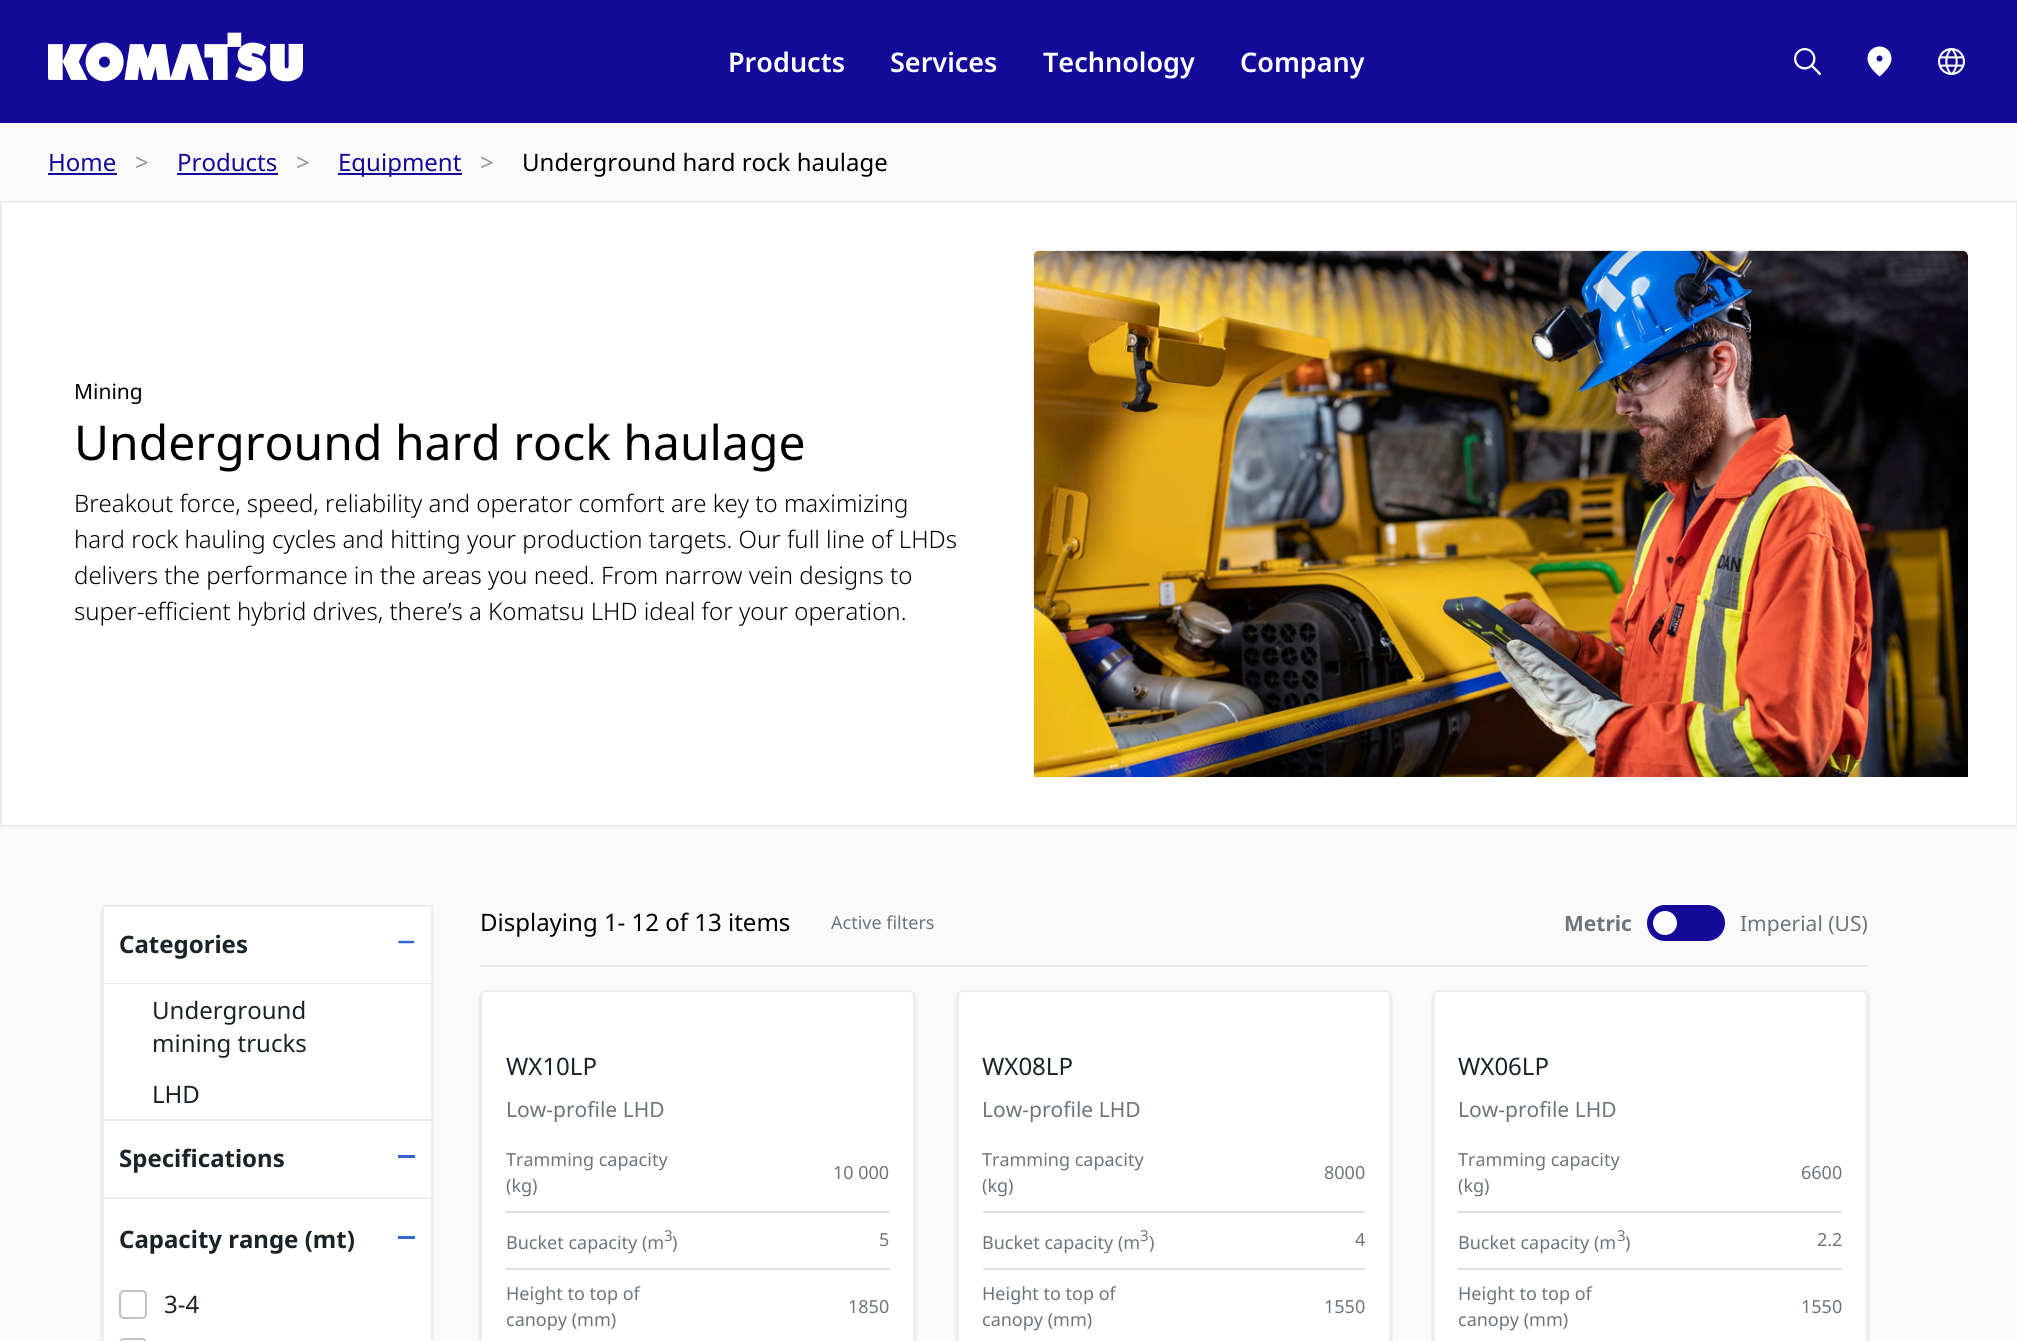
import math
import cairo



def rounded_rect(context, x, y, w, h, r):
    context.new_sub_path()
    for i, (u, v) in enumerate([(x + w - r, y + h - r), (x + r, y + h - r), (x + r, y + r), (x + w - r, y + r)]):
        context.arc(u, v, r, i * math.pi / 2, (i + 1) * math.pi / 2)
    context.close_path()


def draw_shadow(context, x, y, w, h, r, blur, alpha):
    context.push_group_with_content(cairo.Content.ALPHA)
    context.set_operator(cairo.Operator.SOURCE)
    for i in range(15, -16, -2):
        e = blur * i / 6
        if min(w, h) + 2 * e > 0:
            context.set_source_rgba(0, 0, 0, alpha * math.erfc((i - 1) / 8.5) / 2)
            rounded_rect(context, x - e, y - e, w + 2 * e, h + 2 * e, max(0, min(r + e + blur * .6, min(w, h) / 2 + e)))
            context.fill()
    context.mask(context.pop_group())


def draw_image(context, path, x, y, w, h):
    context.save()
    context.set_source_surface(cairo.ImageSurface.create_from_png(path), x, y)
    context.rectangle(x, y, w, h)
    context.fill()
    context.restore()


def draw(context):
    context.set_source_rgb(250 / 255, 250 / 255, 250 / 255)
    context.paint()
    context.set_source_rgb(20 / 255, 10 / 255, 154 / 255)
    context.rectangle(0, 0, 2017, 123)
    context.fill()
    draw_image(context, "images/1.png", 48, 32, 255, 50)
    draw_image(context, "images/2.png", 1794, 48, 27, 27)
    draw_image(context, "images/3.png", 1867, 46, 25, 31)
    draw_image(context, "images/4.png", 1938, 48, 27, 27)
    context.rectangle(48, 173, 69, 2)
    context.fill()
    context.rectangle(177, 173, 101, 2)
    context.fill()
    context.rectangle(338, 173, 124, 2)
    context.fill()
    context.set_source_rgb(1, 1, 1)
    context.rectangle(1, 202, 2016, 624)
    context.fill_preserve()
    context.set_source_rgb(237 / 255, 237 / 255, 237 / 255)
    context.stroke()
    draw_image(context, "images/5.png", 1033, 250, 935, 527)
    context.set_source_rgb(0, 0, 0)
    draw_shadow(context, 102, 906, 330, 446, 6, 1.5, 0.16)
    context.set_source_rgb(1, 1, 1)
    context.rectangle(104, 1121, 327, 220)
    context.fill()
    context.rectangle(104, 907, 327, 212)
    context.fill()
    context.set_source_rgb(237 / 255, 237 / 255, 237 / 255)
    context.rectangle(431, 905, 2, 214)
    context.fill()
    context.rectangle(102, 905, 2, 436)
    context.fill()
    context.rectangle(104, 905, 327, 2)
    context.fill()
    context.rectangle(104, 983, 327, 1)
    context.fill()
    draw_image(context, "images/6.png", 398, 940, 17, 4)
    context.rectangle(431, 1119, 1, 222)
    context.fill()
    context.rectangle(104, 1119, 327, 2)
    context.fill()
    context.rectangle(104, 1197, 327, 2)
    context.fill()
    context.set_source_rgb(51 / 255, 102 / 255, 204 / 255)
    context.rectangle(398, 1155, 17, 3)
    context.fill()
    context.rectangle(398, 1236, 17, 3)
    context.fill()
    rounded_rect(context, 120, 1291, 26, 27, 4)
    context.set_source_rgb(191 / 255, 194 / 255, 197 / 255)
    context.stroke()
    rounded_rect(context, 120, 1339, 26, 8, 4)
    context.stroke()
    context.set_source_rgb(237 / 255, 237 / 255, 237 / 255)
    context.rectangle(480, 965, 1388, 2)
    context.fill()
    context.set_source_rgb(20 / 255, 10 / 255, 154 / 255)
    rounded_rect(context, 1647, 905, 78, 36, 18)
    context.fill()
    context.set_source_rgb(1, 1, 1)
    context.arc(1665, 923, 12, 0, 2 * math.pi)
    context.fill()
    context.set_source_rgb(0, 0, 0)
    draw_shadow(context, 480, 992, 435, 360, 6, 1.5, 0.16)
    context.set_source_rgb(1, 1, 1)
    rounded_rect(context, 481, 991, 433, 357, 5)
    context.fill_preserve()
    context.set_source_rgb(237 / 255, 237 / 255, 237 / 255)
    context.stroke()
    context.set_source_rgb(224 / 255, 224 / 255, 224 / 255)
    context.rectangle(506, 1211, 384, 2)
    context.fill()
    context.rectangle(506, 1268, 384, 2)
    context.fill()
    context.set_source_rgb(0, 0, 0)
    draw_shadow(context, 957, 992, 434, 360, 6, 1.5, 0.16)
    context.set_source_rgb(1, 1, 1)
    rounded_rect(context, 958, 991, 432, 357, 5)
    context.fill_preserve()
    context.set_source_rgb(237 / 255, 237 / 255, 237 / 255)
    context.stroke()
    context.set_source_rgb(224 / 255, 224 / 255, 224 / 255)
    context.rectangle(983, 1211, 382, 2)
    context.fill()
    context.rectangle(983, 1268, 382, 2)
    context.fill()
    context.set_source_rgb(0, 0, 0)
    draw_shadow(context, 1433, 992, 435, 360, 6, 1.5, 0.16)
    context.set_source_rgb(1, 1, 1)
    rounded_rect(context, 1434, 991, 433, 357, 5)
    context.fill_preserve()
    context.set_source_rgb(237 / 255, 237 / 255, 237 / 255)
    context.stroke()
    context.set_source_rgb(224 / 255, 224 / 255, 224 / 255)
    context.rectangle(1458, 1211, 384, 2)
    context.fill()
    context.rectangle(1458, 1268, 384, 2)
    context.fill()
    context.select_font_face("Noto Sans SemiBold")
    context.set_font_size(27)
    context.set_source_rgb(1, 1, 1)
    context.move_to(728, 72)
    context.show_text("Products")
    context.move_to(890, 72)
    context.show_text("Services")
    context.move_to(1043, 72)
    context.show_text("Technology")
    context.move_to(1240, 72)
    context.show_text("Company")
    context.select_font_face("Noto Sans")
    context.set_font_size(24)
    context.set_source_rgb(20 / 255, 10 / 255, 154 / 255)
    context.move_to(48, 171)
    context.show_text("Home")
    context.set_source_rgb(143 / 255, 150 / 255, 154 / 255)
    context.move_to(135, 171)
    context.show_text(">")
    context.set_source_rgb(20 / 255, 10 / 255, 154 / 255)
    context.move_to(177, 171)
    context.show_text("Products")
    context.set_source_rgb(143 / 255, 150 / 255, 154 / 255)
    context.move_to(296, 171)
    context.show_text(">")
    context.set_source_rgb(20 / 255, 10 / 255, 154 / 255)
    context.move_to(338, 171)
    context.show_text("Equipment")
    context.set_source_rgb(143 / 255, 150 / 255, 154 / 255)
    context.move_to(480, 171)
    context.show_text(">")
    context.set_source_rgb(0, 0, 0)
    context.move_to(522, 171)
    context.show_text("Underground hard rock haulage")
    context.set_font_size(21)
    context.move_to(74, 399)
    context.show_text("Mining")
    context.set_font_size(48)
    context.move_to(74, 460)
    context.show_text("Underground hard rock haulage")
    context.select_font_face("Noto Sans Light")
    context.set_font_size(24)
    context.move_to(74, 512)
    context.show_text("Breakout force, speed, reliability and operator comfort are key to maximizing")
    context.move_to(74, 548)
    context.show_text("hard rock hauling cycles and hitting your production targets. Our full line of LHDs")
    context.move_to(74, 584)
    context.show_text("delivers the performance in the areas you need. From narrow vein designs to")
    context.move_to(74, 620)
    context.show_text("super-efficient hybrid drives, there’s a Komatsu LHD ideal for your operation.")
    context.select_font_face("Noto Sans", cairo.FontSlant.NORMAL, cairo.FontWeight.BOLD)
    context.set_source_rgb(27 / 255, 35 / 255, 42 / 255)
    context.move_to(119, 953)
    context.show_text("Categories")
    context.select_font_face("Noto Sans")
    context.move_to(152, 1019)
    context.show_text("Underground")
    context.move_to(152, 1052)
    context.show_text("mining trucks")
    context.move_to(152, 1103)
    context.show_text("LHD")
    context.select_font_face("Noto Sans", cairo.FontSlant.NORMAL, cairo.FontWeight.BOLD)
    context.move_to(119, 1167)
    context.show_text("Specifications")
    context.move_to(119, 1248)
    context.show_text("Capacity range (mt)")
    context.select_font_face("Noto Sans")
    context.move_to(164, 1313)
    context.show_text("3-4")
    context.set_source_rgb(0, 0, 0)
    context.move_to(480, 931)
    context.show_text("Displaying 1- 12 of 13 items")
    context.set_font_size(18)
    context.set_source_rgb(110 / 255, 117 / 255, 122 / 255)
    context.move_to(831, 929)
    context.show_text("Active filters")
    context.select_font_face("Noto Sans", cairo.FontSlant.NORMAL, cairo.FontWeight.BOLD)
    context.set_font_size(21)
    context.move_to(1564, 931)
    context.show_text("Metric")
    context.select_font_face("Noto Sans")
    context.move_to(1740, 931)
    context.show_text("Imperial (US)")
    context.set_font_size(24)
    context.set_source_rgb(27 / 255, 35 / 255, 42 / 255)
    context.move_to(506, 1075)
    context.show_text("WX10LP")
    context.set_font_size(21)
    context.set_source_rgb(110 / 255, 117 / 255, 122 / 255)
    context.move_to(506, 1117)
    context.show_text("Low-profile LHD")
    context.set_font_size(18)
    context.move_to(506, 1166)
    context.show_text("Tramming capacity")
    context.move_to(506, 1192)
    context.show_text("(kg)")
    context.move_to(833, 1179)
    context.show_text("10 000")
    context.move_to(506, 1249)
    context.show_text("Bucket capacity (m")
    context.set_font_size(15)
    context.move_to(664, 1241)
    context.show_text("3")
    context.set_font_size(18)
    context.move_to(672, 1249)
    context.show_text(")")
    context.move_to(879, 1246)
    context.show_text("5")
    context.move_to(506, 1300)
    context.show_text("Height to top of")
    context.move_to(506, 1326)
    context.show_text("canopy (mm)")
    context.move_to(848, 1313)
    context.show_text("1850")
    context.set_font_size(24)
    context.set_source_rgb(27 / 255, 35 / 255, 42 / 255)
    context.move_to(982, 1075)
    context.show_text("WX08LP")
    context.set_font_size(21)
    context.set_source_rgb(110 / 255, 117 / 255, 122 / 255)
    context.move_to(982, 1117)
    context.show_text("Low-profile LHD")
    context.set_font_size(18)
    context.move_to(982, 1166)
    context.show_text("Tramming capacity")
    context.move_to(982, 1192)
    context.show_text("(kg)")
    context.move_to(1324, 1179)
    context.show_text("8000")
    context.move_to(982, 1249)
    context.show_text("Bucket capacity (m")
    context.set_font_size(15)
    context.move_to(1140, 1241)
    context.show_text("3")
    context.set_font_size(18)
    context.move_to(1149, 1249)
    context.show_text(")")
    context.move_to(1355, 1246)
    context.show_text("4")
    context.move_to(982, 1300)
    context.show_text("Height to top of")
    context.move_to(982, 1326)
    context.show_text("canopy (mm)")
    context.move_to(1324, 1313)
    context.show_text("1550")
    context.set_font_size(24)
    context.set_source_rgb(27 / 255, 35 / 255, 42 / 255)
    context.move_to(1458, 1075)
    context.show_text("WX06LP")
    context.set_font_size(21)
    context.set_source_rgb(110 / 255, 117 / 255, 122 / 255)
    context.move_to(1458, 1117)
    context.show_text("Low-profile LHD")
    context.set_font_size(18)
    context.move_to(1458, 1166)
    context.show_text("Tramming capacity")
    context.move_to(1458, 1192)
    context.show_text("(kg)")
    context.move_to(1801, 1179)
    context.show_text("6600")
    context.move_to(1458, 1249)
    context.show_text("Bucket capacity (m")
    context.set_font_size(15)
    context.move_to(1617, 1241)
    context.show_text("3")
    context.set_font_size(18)
    context.move_to(1625, 1249)
    context.show_text(")")
    context.move_to(1817, 1246)
    context.show_text("2.2")
    context.move_to(1458, 1300)
    context.show_text("Height to top of")
    context.move_to(1458, 1326)
    context.show_text("canopy (mm)")
    context.move_to(1801, 1313)
    context.show_text("1550")


surface = cairo.ImageSurface(cairo.Format.RGB24, 2017, 1341)
context = cairo.Context(surface)
options = cairo.FontOptions()
options.set_hint_metrics(cairo.HintMetrics.OFF)
options.set_hint_style(cairo.HintStyle.NONE)
context.set_font_options(options)
context.set_miter_limit(4)
draw(context)
surface.write_to_png("out.png")
